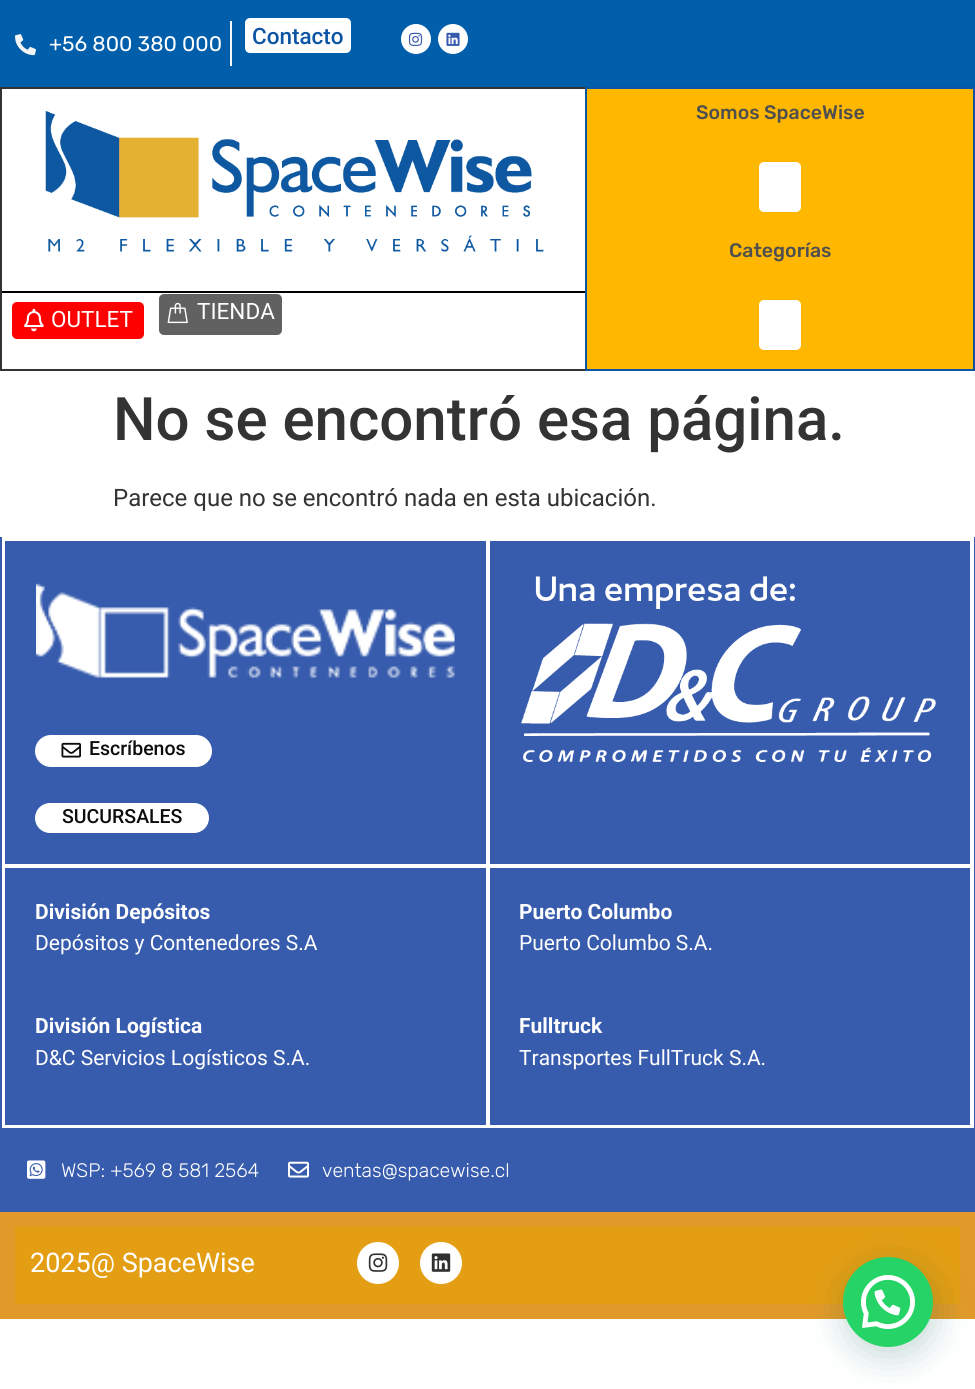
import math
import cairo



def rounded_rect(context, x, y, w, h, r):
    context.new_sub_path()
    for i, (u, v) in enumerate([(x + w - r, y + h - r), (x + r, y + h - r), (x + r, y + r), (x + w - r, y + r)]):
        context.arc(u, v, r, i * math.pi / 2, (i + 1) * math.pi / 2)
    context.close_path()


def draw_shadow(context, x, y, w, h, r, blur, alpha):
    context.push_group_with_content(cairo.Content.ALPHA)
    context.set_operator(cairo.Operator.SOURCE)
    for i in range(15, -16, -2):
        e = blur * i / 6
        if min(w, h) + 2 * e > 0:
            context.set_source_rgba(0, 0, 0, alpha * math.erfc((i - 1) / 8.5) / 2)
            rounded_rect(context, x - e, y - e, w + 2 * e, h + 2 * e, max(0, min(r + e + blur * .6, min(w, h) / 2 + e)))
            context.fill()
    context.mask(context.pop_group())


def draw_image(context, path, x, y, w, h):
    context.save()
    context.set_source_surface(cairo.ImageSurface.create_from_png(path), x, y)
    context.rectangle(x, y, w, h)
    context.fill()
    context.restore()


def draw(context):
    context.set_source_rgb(1, 1, 1)
    context.paint()
    context.set_source_rgb(0, 94 / 255, 171 / 255)
    context.rectangle(0, 0, 975, 87)
    context.fill()
    context.set_source_rgb(246 / 255, 246 / 255, 246 / 255)
    context.rectangle(230, 21, 2, 45)
    context.fill()
    draw_image(context, "images/1.png", 15, 34, 21, 22)
    context.set_source_rgb(1, 1, 1)
    rounded_rect(context, 245, 18, 106, 35, 5)
    context.fill()
    context.arc(416, 39, 15, 0, 2 * math.pi)
    context.fill()
    draw_image(context, "images/2.png", 408, 32, 15, 14)
    context.arc(453, 39, 15, 0, 2 * math.pi)
    context.fill()
    draw_image(context, "images/3.png", 446, 32, 14, 14)
    context.set_source_rgb(1, 183 / 255, 0)
    context.rectangle(586, 88, 388, 282)
    context.fill_preserve()
    context.set_source_rgb(12 / 255, 84 / 255, 164 / 255)
    context.stroke()
    context.set_source_rgb(1, 1, 1)
    rounded_rect(context, 759, 162, 42, 50, 5)
    context.fill()
    rounded_rect(context, 759, 300, 42, 50, 5)
    context.fill()
    context.set_source_rgb(51 / 255, 51 / 255, 51 / 255)
    context.rectangle(0, 87, 585, 2)
    context.fill()
    context.rectangle(0, 369, 585, 2)
    context.fill()
    context.rectangle(0, 87, 2, 284)
    context.fill()
    draw_image(context, "images/4.png", 45, 111, 499, 141)
    context.set_source_rgb(0, 0, 0)
    context.rectangle(2, 291, 583, 2)
    context.fill()
    context.set_source_rgb(1, 0, 0)
    rounded_rect(context, 12, 302, 132, 37, 5)
    context.fill()
    draw_image(context, "images/5.png", 24, 308, 20, 24)
    context.set_source_rgb(97 / 255, 97 / 255, 97 / 255)
    rounded_rect(context, 159, 294, 123, 41, 5)
    context.fill()
    draw_image(context, "images/6.png", 167, 302, 21, 22)
    context.set_source_rgb(56 / 255, 92 / 255, 173 / 255)
    context.rectangle(0, 537, 975, 675)
    context.fill()
    context.rectangle(3, 538, 970, 589)
    context.set_source_rgb(1, 1, 1)
    context.stroke()
    context.rectangle(4, 540, 483, 325)
    context.stroke()
    draw_image(context, "images/7.png", 36, 583, 419, 95)
    rounded_rect(context, 35, 735, 177, 32, 16)
    context.fill()
    draw_image(context, "images/8.png", 61, 742, 20, 16)
    rounded_rect(context, 35, 803, 174, 30, 15)
    context.fill()
    context.rectangle(489, 540, 482, 325)
    context.stroke()
    draw_image(context, "images/9.png", 521, 576, 415, 186)
    context.rectangle(4, 867, 483, 259)
    context.stroke()
    context.rectangle(489, 867, 482, 259)
    context.stroke()
    draw_image(context, "images/10.png", 27, 1160, 19, 19)
    draw_image(context, "images/11.png", 288, 1161, 21, 17)
    context.set_source_rgb(225 / 255, 154 / 255, 41 / 255)
    context.rectangle(0, 1212, 975, 107)
    context.fill()
    context.set_source_rgb(228 / 255, 158 / 255, 19 / 255)
    context.rectangle(15, 1227, 945, 77)
    context.fill()
    context.set_source_rgb(1, 1, 1)
    context.arc(378, 1263, 21, 0, 2 * math.pi)
    context.fill()
    draw_image(context, "images/12.png", 368, 1253, 20, 19)
    context.arc(441, 1263, 21, 0, 2 * math.pi)
    context.fill()
    draw_image(context, "images/13.png", 431, 1253, 20, 19)
    context.set_source_rgb(7 / 255, 94 / 255, 84 / 255)
    draw_shadow(context, 845, 1266, 90, 90, 45, 18, 0.24)
    context.set_source_rgb(37 / 255, 211 / 255, 102 / 255)
    context.arc(888, 1302, 45, 0, 2 * math.pi)
    context.fill()
    draw_image(context, "images/14.png", 861, 1275, 54, 54)
    context.select_font_face("Rubik")
    context.set_font_size(21)
    context.set_source_rgb(1, 1, 1)
    context.move_to(49, 51)
    context.show_text("+56 800 380 000")
    context.select_font_face("Roboto Medium")
    context.set_font_size(22.5)
    context.set_source_rgb(12 / 255, 84 / 255, 164 / 255)
    context.move_to(252, 44)
    context.show_text("Contacto")
    context.select_font_face("Rubik Medium")
    context.set_font_size(19.5)
    context.set_source_rgb(79 / 255, 79 / 255, 79 / 255)
    context.move_to(696, 119)
    context.show_text("Somos SpaceWise")
    context.move_to(729, 257)
    context.show_text("Categorías")
    context.select_font_face("Roboto")
    context.set_font_size(22.5)
    context.set_source_rgb(1, 1, 1)
    context.move_to(51, 327)
    context.show_text("OUTLET")
    context.move_to(197, 319)
    context.show_text("TIENDA")
    context.select_font_face("Roboto Medium")
    context.set_font_size(60)
    context.set_source_rgb(51 / 255, 51 / 255, 51 / 255)
    context.move_to(113, 440)
    context.show_text("No se encontró esa página.")
    context.select_font_face("Roboto")
    context.set_font_size(24)
    context.move_to(113, 506)
    context.show_text("Parece que no se encontró nada en esta ubicación.")
    context.select_font_face("Roboto Medium")
    context.set_font_size(19.5)
    context.set_source_rgb(12 / 255, 12 / 255, 12 / 255)
    context.move_to(89, 755)
    context.show_text("Escríbenos")
    context.move_to(62, 823)
    context.show_text("SUCURSALES")
    context.select_font_face("Roboto", cairo.FontSlant.NORMAL, cairo.FontWeight.BOLD)
    context.set_font_size(21)
    context.set_source_rgb(1, 1, 1)
    context.move_to(35, 919)
    context.show_text("División Depósitos")
    context.select_font_face("Roboto")
    context.move_to(35, 950)
    context.show_text("Depósitos y Contenedores S.A")
    context.select_font_face("Roboto", cairo.FontSlant.NORMAL, cairo.FontWeight.BOLD)
    context.move_to(35, 1033)
    context.show_text("División Logística")
    context.select_font_face("Roboto")
    context.move_to(35, 1065)
    context.show_text("D&C Servicios Logísticos S.A.")
    context.select_font_face("Roboto", cairo.FontSlant.NORMAL, cairo.FontWeight.BOLD)
    context.move_to(519, 919)
    context.show_text("Puerto Columbo")
    context.select_font_face("Roboto")
    context.move_to(519, 950)
    context.show_text("Puerto Columbo S.A.")
    context.select_font_face("Roboto", cairo.FontSlant.NORMAL, cairo.FontWeight.BOLD)
    context.move_to(519, 1033)
    context.show_text("Fulltruck")
    context.select_font_face("Roboto")
    context.move_to(519, 1065)
    context.show_text("Transportes FullTruck S.A.")
    context.select_font_face("Rubik Light")
    context.set_font_size(19.5)
    context.move_to(61, 1177)
    context.show_text("WSP: +569 8 581 2564")
    context.move_to(322, 1177)
    context.show_text("ventas@spacewise.cl")
    context.select_font_face("Roboto")
    context.set_font_size(27)
    context.move_to(30, 1272)
    context.show_text("2025@ SpaceWise")


surface = cairo.ImageSurface(cairo.Format.RGB24, 975, 1389)
context = cairo.Context(surface)
options = cairo.FontOptions()
options.set_hint_metrics(cairo.HintMetrics.OFF)
options.set_hint_style(cairo.HintStyle.NONE)
context.set_font_options(options)
context.set_miter_limit(4)
draw(context)
surface.write_to_png("out.png")
